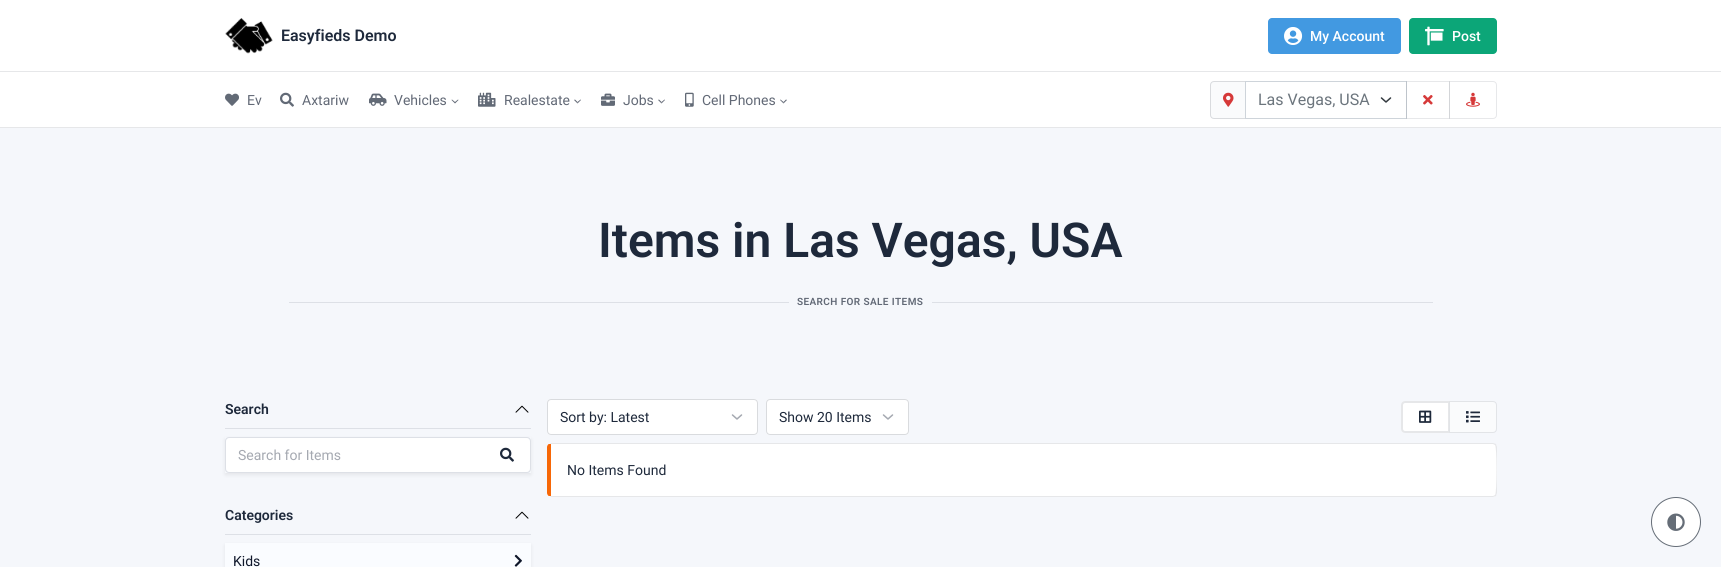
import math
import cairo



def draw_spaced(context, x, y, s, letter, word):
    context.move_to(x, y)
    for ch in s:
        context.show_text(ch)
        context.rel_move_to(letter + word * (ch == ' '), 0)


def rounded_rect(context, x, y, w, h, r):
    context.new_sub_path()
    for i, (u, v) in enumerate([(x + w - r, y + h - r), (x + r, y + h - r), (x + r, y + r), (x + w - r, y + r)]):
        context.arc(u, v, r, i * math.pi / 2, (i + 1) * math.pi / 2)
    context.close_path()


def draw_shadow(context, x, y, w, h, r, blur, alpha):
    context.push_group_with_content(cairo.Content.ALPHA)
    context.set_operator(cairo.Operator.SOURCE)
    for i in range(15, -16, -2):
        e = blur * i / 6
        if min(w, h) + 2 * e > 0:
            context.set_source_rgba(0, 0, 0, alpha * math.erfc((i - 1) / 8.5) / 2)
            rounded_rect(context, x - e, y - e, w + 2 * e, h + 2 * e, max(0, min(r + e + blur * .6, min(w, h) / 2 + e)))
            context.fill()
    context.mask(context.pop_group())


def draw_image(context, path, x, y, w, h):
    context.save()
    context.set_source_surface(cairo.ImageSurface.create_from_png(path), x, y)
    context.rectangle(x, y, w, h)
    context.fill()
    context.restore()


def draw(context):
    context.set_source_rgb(245 / 255, 247 / 255, 251 / 255)
    context.paint()
    context.set_source_rgb(1, 1, 1)
    context.rectangle(0, 0, 1721, 71)
    context.fill()
    context.set_source_rgb(230 / 255, 231 / 255, 233 / 255)
    context.rectangle(0, 71, 1721, 1)
    context.fill()
    draw_image(context, "images/1.png", 225, 18, 48, 36)
    context.set_source_rgb(66 / 255, 153 / 255, 225 / 255)
    rounded_rect(context, 1268, 18, 133, 36, 4)
    context.fill()
    draw_image(context, "images/2.png", 1284, 27, 19, 18)
    context.set_source_rgb(12 / 255, 166 / 255, 120 / 255)
    rounded_rect(context, 1409, 18, 88, 36, 4)
    context.fill()
    draw_image(context, "images/3.png", 1425, 26, 19, 20)
    context.set_source_rgb(1, 1, 1)
    context.rectangle(0, 72, 1721, 55)
    context.fill()
    context.set_source_rgb(230 / 255, 231 / 255, 233 / 255)
    context.rectangle(0, 127, 1721, 1)
    context.fill()
    draw_image(context, "images/4.png", 225, 93, 14, 13)
    draw_image(context, "images/5.png", 280, 92, 14, 15)
    draw_image(context, "images/6.png", 369, 93, 18, 13)
    context.set_source_rgb(98 / 255, 105 / 255, 118 / 255)
    context.new_path()
    context.move_to(458.5, 100)
    context.line_to(455, 103.5)
    context.line_to(455, 102)
    context.line_to(458, 99.5)
    context.close_path()
    context.move_to(455, 103.5)
    context.line_to(451.5, 100)
    context.line_to(452, 99.5)
    context.line_to(455, 102)
    context.close_path()
    context.fill()
    draw_image(context, "images/7.png", 478, 92, 18, 15)
    context.new_path()
    context.move_to(581, 100)
    context.line_to(577.5, 103.5)
    context.line_to(577.5, 102)
    context.line_to(580.5, 99.5)
    context.close_path()
    context.fill()
    context.set_source_rgba(30 / 255, 41 / 255, 59 / 255, 0.7)
    context.new_path()
    context.move_to(577.5, 103.5)
    context.line_to(574, 100)
    context.line_to(575, 99.5)
    context.line_to(577.5, 102)
    context.close_path()
    context.fill()
    draw_image(context, "images/8.png", 601, 93, 14, 13)
    context.set_source_rgb(98 / 255, 105 / 255, 118 / 255)
    context.new_path()
    context.move_to(665, 100)
    context.line_to(661.5, 103.5)
    context.line_to(661.5, 102)
    context.line_to(664.5, 99.5)
    context.close_path()
    context.fill()
    context.set_source_rgba(30 / 255, 41 / 255, 59 / 255, 0.7)
    context.new_path()
    context.move_to(661.5, 103.5)
    context.line_to(658, 100)
    context.line_to(659, 99.5)
    context.line_to(661.5, 102)
    context.close_path()
    context.fill()
    draw_image(context, "images/9.png", 685, 92, 9, 15)
    context.set_source_rgb(98 / 255, 105 / 255, 118 / 255)
    context.new_path()
    context.move_to(787, 100)
    context.line_to(783.5, 103.5)
    context.line_to(783.5, 102)
    context.line_to(786, 99.5)
    context.close_path()
    context.fill()
    context.set_source_rgba(30 / 255, 41 / 255, 59 / 255, 0.7)
    context.new_path()
    context.move_to(783.5, 103.5)
    context.line_to(780, 100)
    context.line_to(780.5, 99.5)
    context.line_to(783.5, 102)
    context.close_path()
    context.fill()
    context.set_source_rgb(250 / 255, 251 / 255, 252 / 255)
    context.new_path()
    context.move_to(1214, 81.5)
    context.line_to(1245.5, 81.5)
    context.line_to(1245.5, 118.5)
    context.line_to(1214, 118.5)
    context.curve_to(1212, 118.5, 1210.5, 117, 1210.5, 115)
    context.line_to(1210.5, 85)
    context.curve_to(1210.5, 83, 1212, 81.5, 1214, 81.5)
    context.close_path()
    context.fill_preserve()
    context.set_source_rgb(217 / 255, 219 / 255, 222 / 255)
    context.set_line_width(1)
    context.stroke()
    draw_image(context, "images/10.png", 1223, 92, 11, 15)
    context.new_path()
    context.move_to(1381.5, 98)
    context.line_to(1386, 102)
    context.line_to(1390.5, 98)
    context.set_source_rgb(52 / 255, 58 / 255, 64 / 255)
    context.set_line_width(1.5)
    context.set_line_cap(cairo.LineCap.ROUND)
    context.set_line_join(cairo.LineJoin.ROUND)
    context.stroke()
    context.rectangle(1245.5, 81.5, 161, 37)
    context.set_source_rgb(206 / 255, 212 / 255, 218 / 255)
    context.set_line_width(1)
    context.set_line_cap(cairo.LineCap.BUTT)
    context.set_line_join(cairo.LineJoin.MITER)
    context.stroke()
    context.rectangle(1406.5, 81.5, 43, 37)
    context.set_source_rgba(101 / 255, 109 / 255, 119 / 255, 0.16)
    context.stroke()
    draw_image(context, "images/11.png", 1423, 95, 10, 10)
    context.new_path()
    context.move_to(1449.5, 81.5)
    context.line_to(1493, 81.5)
    context.curve_to(1495, 81.5, 1496.5, 83, 1496.5, 85)
    context.line_to(1496.5, 115)
    context.curve_to(1496.5, 117, 1495, 118.5, 1493, 118.5)
    context.line_to(1449.5, 118.5)
    context.close_path()
    context.stroke()
    draw_image(context, "images/12.png", 1466, 92, 14, 15)
    context.set_source_rgb(221 / 255, 224 / 255, 230 / 255)
    context.rectangle(289, 302, 500, 1)
    context.fill()
    context.rectangle(932, 302, 501, 1)
    context.fill()
    context.rectangle(225, 428, 306, 1)
    context.fill()
    draw_image(context, "images/13.png", 515, 405, 14, 8)
    context.save()
    context.set_fill_rule(cairo.FillRule.EVEN_ODD)
    context.new_path()
    context.move_to(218, 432)
    context.line_to(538, 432)
    context.line_to(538, 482)
    context.line_to(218, 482)
    context.close_path()
    context.move_to(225, 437)
    context.line_to(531, 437)
    context.line_to(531, 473)
    context.line_to(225, 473)
    context.close_path()
    context.clip()
    context.set_source_rgb(0, 0, 0)
    draw_shadow(context, 225, 439, 306, 36, 0, 2, 0.07)
    context.restore()
    rounded_rect(context, 225.5, 437.5, 305, 35, 3.5)
    context.stroke()
    context.set_source_rgb(1, 1, 1)
    context.new_path()
    context.move_to(230, 438)
    context.line_to(485, 438)
    context.line_to(485, 472)
    context.line_to(230, 472)
    context.curve_to(228, 472, 226, 470, 226, 468)
    context.line_to(226, 442)
    context.curve_to(226, 440, 228, 438, 230, 438)
    context.close_path()
    context.fill()
    context.new_path()
    context.move_to(484, 438)
    context.line_to(526, 438)
    context.curve_to(528, 438, 530, 440, 530, 442)
    context.line_to(530, 468)
    context.curve_to(530, 470, 528, 472, 526, 472)
    context.line_to(484, 472)
    context.close_path()
    context.fill()
    draw_image(context, "images/14.png", 500, 447, 14, 15)
    context.set_source_rgb(221 / 255, 224 / 255, 230 / 255)
    context.rectangle(225, 534, 306, 1)
    context.fill()
    draw_image(context, "images/13.png", 515, 511, 14, 8)
    context.set_source_rgb(0, 0, 0)
    draw_shadow(context, 225, 545, 306, 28, 0, 2, 0.07)
    context.set_source_rgb(250 / 255, 252 / 255, 1)
    context.rectangle(225, 543, 306, 24)
    context.fill()
    draw_image(context, "images/15.png", 514, 554, 8, 13)
    context.set_source_rgb(1, 1, 1)
    rounded_rect(context, 547, 399, 211, 36, 4)
    context.fill()
    context.new_path()
    context.move_to(732.5, 415)
    context.line_to(737, 419)
    context.line_to(741.5, 415)
    context.set_source_rgb(165 / 255, 169 / 255, 177 / 255)
    context.set_line_width(1.5)
    context.set_line_cap(cairo.LineCap.ROUND)
    context.set_line_join(cairo.LineJoin.ROUND)
    context.stroke()
    rounded_rect(context, 547.5, 399.5, 210, 35, 3.5)
    context.set_source_rgb(217 / 255, 219 / 255, 222 / 255)
    context.set_line_width(1)
    context.set_line_cap(cairo.LineCap.BUTT)
    context.set_line_join(cairo.LineJoin.MITER)
    context.stroke()
    context.set_source_rgb(1, 1, 1)
    rounded_rect(context, 766, 399, 143, 36, 4)
    context.fill()
    context.new_path()
    context.move_to(883.5, 415)
    context.line_to(888, 419)
    context.line_to(892.5, 415)
    context.set_source_rgb(165 / 255, 169 / 255, 177 / 255)
    context.set_line_width(1.5)
    context.set_line_cap(cairo.LineCap.ROUND)
    context.set_line_join(cairo.LineJoin.ROUND)
    context.stroke()
    rounded_rect(context, 766.5, 399.5, 142, 35, 3.5)
    context.set_source_rgb(217 / 255, 219 / 255, 222 / 255)
    context.set_line_width(1)
    context.set_line_cap(cairo.LineCap.BUTT)
    context.set_line_join(cairo.LineJoin.MITER)
    context.stroke()
    context.set_source_rgb(1, 1, 1)
    context.new_path()
    context.move_to(1405, 401)
    context.line_to(1450, 401)
    context.line_to(1450, 433)
    context.line_to(1405, 433)
    context.curve_to(1403, 433, 1401, 431, 1401, 429)
    context.line_to(1401, 405)
    context.curve_to(1401, 403, 1403, 401, 1405, 401)
    context.close_path()
    context.fill()
    context.new_path()
    context.move_to(1405, 402)
    context.line_to(1449, 402)
    context.line_to(1449, 432)
    context.line_to(1405, 432)
    context.curve_to(1403.5, 432, 1402, 430.5, 1402, 429)
    context.line_to(1402, 405)
    context.curve_to(1402, 403.5, 1403.5, 402, 1405, 402)
    context.close_path()
    context.set_source_rgba(98 / 255, 105 / 255, 118 / 255, 0.16)
    context.set_line_width(2)
    context.stroke()
    draw_image(context, "images/16.png", 1419, 410, 13, 13)
    context.set_source_rgb(250 / 255, 251 / 255, 252 / 255)
    context.new_path()
    context.move_to(1449.5, 401.5)
    context.line_to(1493, 401.5)
    context.curve_to(1495, 401.5, 1496.5, 403, 1496.5, 405)
    context.line_to(1496.5, 429)
    context.curve_to(1496.5, 431, 1495, 432.5, 1493, 432.5)
    context.line_to(1449.5, 432.5)
    context.close_path()
    context.fill_preserve()
    context.set_source_rgb(226 / 255, 228 / 255, 231 / 255)
    context.set_line_width(1)
    context.stroke()
    draw_image(context, "images/17.png", 1466, 411, 14, 12)
    context.set_source_rgb(1, 1, 1)
    rounded_rect(context, 547, 443, 950, 54, 4)
    context.fill()
    context.set_source_rgba(98 / 255, 105 / 255, 118 / 255, 0.16)
    context.new_path()
    context.move_to(551, 443)
    context.line_to(549, 444)
    context.line_to(551, 444)
    context.line_to(1493, 444)
    context.line_to(1495, 445)
    context.line_to(1496, 444)
    context.line_to(1493, 443)
    context.close_path()
    context.fill()
    context.new_path()
    context.move_to(1497, 493)
    context.line_to(1497, 447)
    context.curve_to(1497, 446, 1496, 445, 1496, 444)
    context.line_to(1495, 445)
    context.curve_to(1497, 446, 1497, 494, 1495, 495)
    context.line_to(1496, 496)
    context.close_path()
    context.fill()
    context.new_path()
    context.move_to(551, 497)
    context.line_to(1493, 497)
    context.line_to(1496, 496)
    context.line_to(1495, 495)
    context.line_to(1493, 496)
    context.line_to(551, 496)
    context.line_to(549, 496)
    context.close_path()
    context.fill()
    context.set_source_rgb(247 / 255, 103 / 255, 7 / 255)
    context.new_path()
    context.move_to(551, 444)
    context.line_to(549, 444)
    context.curve_to(548, 444, 547, 446, 547, 447)
    context.line_to(547, 493)
    context.curve_to(547, 494, 548, 496, 549, 496)
    context.line_to(551, 496)
    context.close_path()
    context.fill()
    context.set_source_rgb(1, 1, 1)
    context.arc(1676, 522, 24.5, 0, 2 * math.pi)
    context.fill_preserve()
    context.set_source_rgb(101 / 255, 109 / 255, 119 / 255)
    context.stroke()
    draw_image(context, "images/18.png", 1667, 513, 18, 18)
    context.select_font_face("Roboto SemiBold")
    context.set_font_size(16)
    context.set_source_rgb(30 / 255, 41 / 255, 59 / 255)
    context.move_to(281, 41)
    context.show_text("Easyfieds Demo")
    context.select_font_face("Roboto Medium")
    context.set_font_size(14)
    context.set_source_rgb(1, 1, 1)
    context.move_to(1310, 41)
    context.show_text("My Account")
    context.move_to(1452, 41)
    context.show_text("Post")
    context.select_font_face("Roboto")
    context.set_source_rgb(98 / 255, 105 / 255, 118 / 255)
    context.move_to(247, 105)
    context.show_text("Ev")
    context.move_to(302, 105)
    context.show_text("Axtariw")
    context.move_to(394, 105)
    context.show_text("Vehicles")
    context.move_to(504, 105)
    context.show_text("Realestate")
    context.move_to(623, 105)
    context.show_text("Jobs")
    context.move_to(702, 105)
    context.show_text("Cell Phones")
    context.set_font_size(16)
    context.set_source_rgb(108 / 255, 117 / 255, 125 / 255)
    context.move_to(1258, 105)
    context.show_text("Las Vegas, USA")
    context.select_font_face("Roboto SemiBold")
    context.set_font_size(48)
    context.set_source_rgb(30 / 255, 41 / 255, 59 / 255)
    context.move_to(598, 257)
    context.show_text("Items in Las Vegas, USA")
    context.set_font_size(10)
    context.set_source_rgb(98 / 255, 105 / 255, 118 / 255)
    draw_spaced(context, 797, 305, "SEARCH FOR SALE ITEMS", 0.4, 0)
    context.set_font_size(14)
    context.set_source_rgb(30 / 255, 41 / 255, 59 / 255)
    context.move_to(225, 414)
    context.show_text("Search")
    context.select_font_face("Roboto")
    context.set_source_rgb(165 / 255, 169 / 255, 177 / 255)
    context.move_to(238, 460)
    context.show_text("Search for Items")
    context.select_font_face("Roboto SemiBold")
    context.set_source_rgb(30 / 255, 41 / 255, 59 / 255)
    context.move_to(225, 520)
    context.show_text("Categories")
    context.select_font_face("Roboto")
    context.set_source_rgb(15 / 255, 23 / 255, 42 / 255)
    context.move_to(233, 566)
    context.show_text("Kids")
    context.set_source_rgb(30 / 255, 41 / 255, 59 / 255)
    context.move_to(560, 422)
    context.show_text("Sort by: Latest")
    context.move_to(779, 422)
    context.show_text("Show 20 Items")
    context.move_to(567, 475)
    context.show_text("No Items Found")


surface = cairo.ImageSurface(cairo.Format.RGB24, 1721, 567)
context = cairo.Context(surface)
options = cairo.FontOptions()
options.set_hint_metrics(cairo.HintMetrics.OFF)
options.set_hint_style(cairo.HintStyle.NONE)
context.set_font_options(options)
context.set_miter_limit(4)
draw(context)
surface.write_to_png("out.png")
